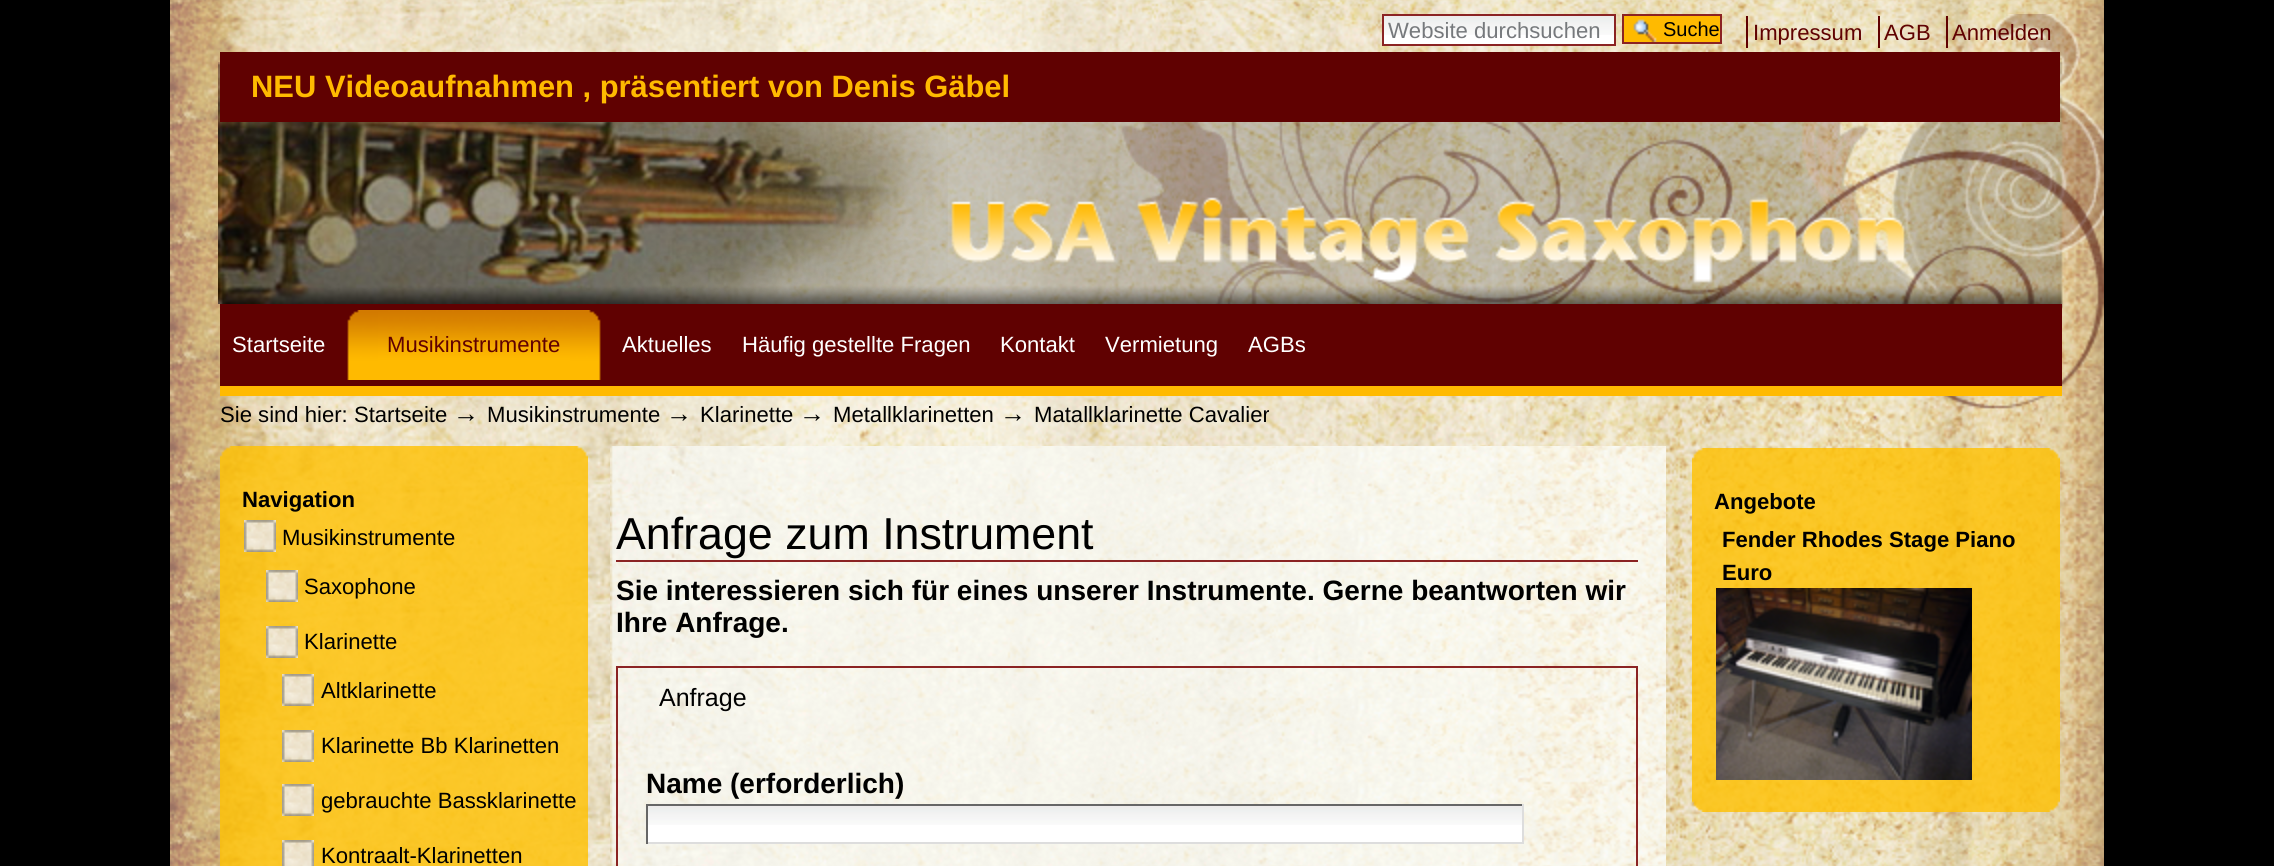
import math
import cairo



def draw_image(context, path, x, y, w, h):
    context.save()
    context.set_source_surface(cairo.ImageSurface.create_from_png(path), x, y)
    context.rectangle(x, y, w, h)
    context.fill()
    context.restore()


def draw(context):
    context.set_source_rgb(0, 0, 0)
    context.paint()
    draw_image(context, "images/1.png", 170, 0, 1934, 866)
    draw_image(context, "images/2.png", 218, 62, 730, 242)
    draw_image(context, "images/3.png", 221, 14, 1883, 395)
    context.set_source_rgb(1, 186 / 255, 0)
    context.rectangle(220, 386, 1842, 10)
    context.fill()
    context.set_source_rgb(1, 1, 1)
    context.rectangle(1384, 35, 230, 9)
    context.fill()
    draw_image(context, "images/4.png", 1384, 16, 230, 19)
    context.rectangle(1383, 15, 232, 30)
    context.set_source_rgb(139 / 255, 35 / 255, 35 / 255)
    context.stroke()
    context.set_source_rgb(1, 186 / 255, 0)
    context.rectangle(1624, 16, 96, 26)
    context.fill()
    draw_image(context, "images/5.png", 1633, 19, 24, 23)
    context.rectangle(1623, 15, 98, 28)
    context.set_source_rgb(139 / 255, 35 / 255, 35 / 255)
    context.stroke()
    context.set_source_rgb(96 / 255, 1 / 255, 1 / 255)
    context.rectangle(1746, 16, 2, 32)
    context.fill()
    context.rectangle(1878, 16, 2, 32)
    context.fill()
    context.rectangle(1946, 16, 2, 32)
    context.fill()
    context.rectangle(220, 52, 1840, 70)
    context.fill()
    context.rectangle(220, 304, 1842, 82)
    context.fill()
    draw_image(context, "images/6.png", 347, 310, 31, 70)
    draw_image(context, "images/7.png", 378, 310, 192, 70)
    draw_image(context, "images/8.png", 570, 310, 31, 70)
    draw_image(context, "images/9.png", 220, 446, 368, 32)
    context.set_source_rgba(1, 192 / 255, 0, 0.8)
    context.rectangle(220, 478, 368, 42)
    context.fill()
    context.rectangle(220, 520, 368, 346)
    context.fill()
    draw_image(context, "images/10.png", 244, 520, 32, 32)
    draw_image(context, "images/10.png", 266, 570, 32, 32)
    draw_image(context, "images/10.png", 266, 626, 32, 32)
    draw_image(context, "images/10.png", 282, 674, 32, 32)
    draw_image(context, "images/10.png", 282, 730, 32, 32)
    draw_image(context, "images/10.png", 282, 784, 32, 32)
    draw_image(context, "images/11.png", 282, 840, 32, 26)
    draw_image(context, "images/12.png", 610, 446, 1056, 420)
    context.set_source_rgb(139 / 255, 35 / 255, 35 / 255)
    context.rectangle(616, 560, 1022, 2)
    context.fill()
    context.rectangle(617, 667, 1020, 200)
    context.stroke()
    context.set_source_rgb(1, 1, 1)
    context.rectangle(648, 825, 874, 17)
    context.fill()
    draw_image(context, "images/13.png", 648, 806, 874, 19)
    context.set_source_rgb(102 / 255, 102 / 255, 102 / 255)
    context.rectangle(646, 804, 878, 2)
    context.fill()
    context.set_source_rgb(221 / 255, 221 / 255, 221 / 255)
    context.rectangle(1522, 804, 2, 40)
    context.fill()
    context.rectangle(646, 842, 878, 2)
    context.fill()
    context.set_source_rgb(102 / 255, 102 / 255, 102 / 255)
    context.rectangle(646, 804, 2, 40)
    context.fill()
    draw_image(context, "images/14.png", 1692, 780, 368, 32)
    draw_image(context, "images/15.png", 1692, 448, 368, 32)
    context.set_source_rgba(1, 192 / 255, 0, 0.8)
    context.rectangle(1692, 480, 368, 42)
    context.fill()
    context.rectangle(1692, 522, 368, 258)
    context.fill()
    draw_image(context, "images/16.png", 1716, 588, 256, 192)
    context.select_font_face("Liberation Sans")
    context.set_font_size(22.1)
    context.set_source_rgb(118 / 255, 121 / 255, 124 / 255)
    context.move_to(1388, 38)
    context.show_text("Website durchsuchen")
    context.set_font_size(20)
    context.set_source_rgb(0, 0, 0)
    context.move_to(1663, 36)
    context.show_text("Suche")
    context.set_font_size(22.1)
    context.set_source_rgb(96 / 255, 1 / 255, 1 / 255)
    context.move_to(1753, 40)
    context.show_text("Impressum")
    context.move_to(1884, 40)
    context.show_text("AGB")
    context.move_to(1952, 40)
    context.show_text("Anmelden")
    context.select_font_face("Liberation Sans", cairo.FontSlant.NORMAL, cairo.FontWeight.BOLD)
    context.set_font_size(30.9)
    context.set_source_rgb(1, 186 / 255, 0)
    context.move_to(251, 97)
    context.show_text("NEU")
    context.move_to(325, 97)
    context.show_text("Videoaufnahmen , präsentiert von Denis Gäbel")
    context.select_font_face("Liberation Sans")
    context.set_font_size(22.1)
    context.set_source_rgb(1, 1, 1)
    context.move_to(232, 352)
    context.show_text("Startseite")
    context.set_source_rgb(96 / 255, 1 / 255, 1 / 255)
    context.move_to(387, 352)
    context.show_text("Musikinstrumente")
    context.set_source_rgb(1, 1, 1)
    context.move_to(622, 352)
    context.show_text("Aktuelles")
    context.move_to(742, 352)
    context.show_text("Häufig gestellte Fragen")
    context.move_to(1000, 352)
    context.show_text("Kontakt")
    context.move_to(1105, 352)
    context.show_text("Vermietung")
    context.move_to(1248, 352)
    context.show_text("AGBs")
    context.set_source_rgb(0, 0, 0)
    context.move_to(220, 422)
    context.show_text("Sie sind hier: Startseite")
    context.set_font_size(26)
    context.move_to(453, 422)
    context.show_text("→")
    context.set_font_size(22.1)
    context.move_to(487, 422)
    context.show_text("Musikinstrumente")
    context.set_font_size(26)
    context.move_to(666, 422)
    context.show_text("→")
    context.set_font_size(22.1)
    context.move_to(700, 422)
    context.show_text("Klarinette")
    context.set_font_size(26)
    context.move_to(799, 422)
    context.show_text("→")
    context.set_font_size(22.1)
    context.move_to(833, 422)
    context.show_text("Metallklarinetten")
    context.set_font_size(26)
    context.move_to(1000, 422)
    context.show_text("→")
    context.set_font_size(22.1)
    context.move_to(1034, 422)
    context.show_text("Matallklarinette Cavalier")
    context.select_font_face("Liberation Sans", cairo.FontSlant.NORMAL, cairo.FontWeight.BOLD)
    context.move_to(242, 507)
    context.show_text("Navigation")
    context.select_font_face("Liberation Sans")
    context.move_to(282, 545)
    context.show_text("Musikinstrumente")
    context.move_to(304, 594)
    context.show_text("Saxophone")
    context.move_to(304, 649)
    context.show_text("Klarinette")
    context.move_to(321, 698)
    context.show_text("Altklarinette")
    context.move_to(321, 753)
    context.show_text("Klarinette Bb Klarinetten")
    context.move_to(321, 808)
    context.show_text("gebrauchte Bassklarinette")
    context.move_to(321, 863)
    context.show_text("Kontraalt-Klarinetten")
    context.set_font_size(44.75)
    context.move_to(616, 549)
    context.show_text("Anfrage zum Instrument")
    context.select_font_face("Liberation Sans", cairo.FontSlant.NORMAL, cairo.FontWeight.BOLD)
    context.set_font_size(28)
    context.move_to(616, 600)
    context.show_text("Sie interessieren sich für eines unserer Instrumente. Gerne beantworten wir")
    context.move_to(616, 632)
    context.show_text("Ihre Anfrage.")
    context.select_font_face("Liberation Sans")
    context.set_font_size(25)
    context.move_to(659, 706)
    context.show_text("Anfrage")
    context.select_font_face("Liberation Sans", cairo.FontSlant.NORMAL, cairo.FontWeight.BOLD)
    context.set_font_size(28)
    context.move_to(646, 793)
    context.show_text("Name (erforderlich)")
    context.set_font_size(22.1)
    context.move_to(1714, 509)
    context.show_text("Angebote")
    context.move_to(1722, 547)
    context.show_text("Fender Rhodes Stage Piano")
    context.move_to(1722, 580)
    context.show_text("Euro")


surface = cairo.ImageSurface(cairo.Format.RGB24, 2274, 866)
context = cairo.Context(surface)
options = cairo.FontOptions()
options.set_hint_metrics(cairo.HintMetrics.OFF)
options.set_hint_style(cairo.HintStyle.NONE)
context.set_font_options(options)
context.set_miter_limit(4)
draw(context)
surface.write_to_png("out.png")
